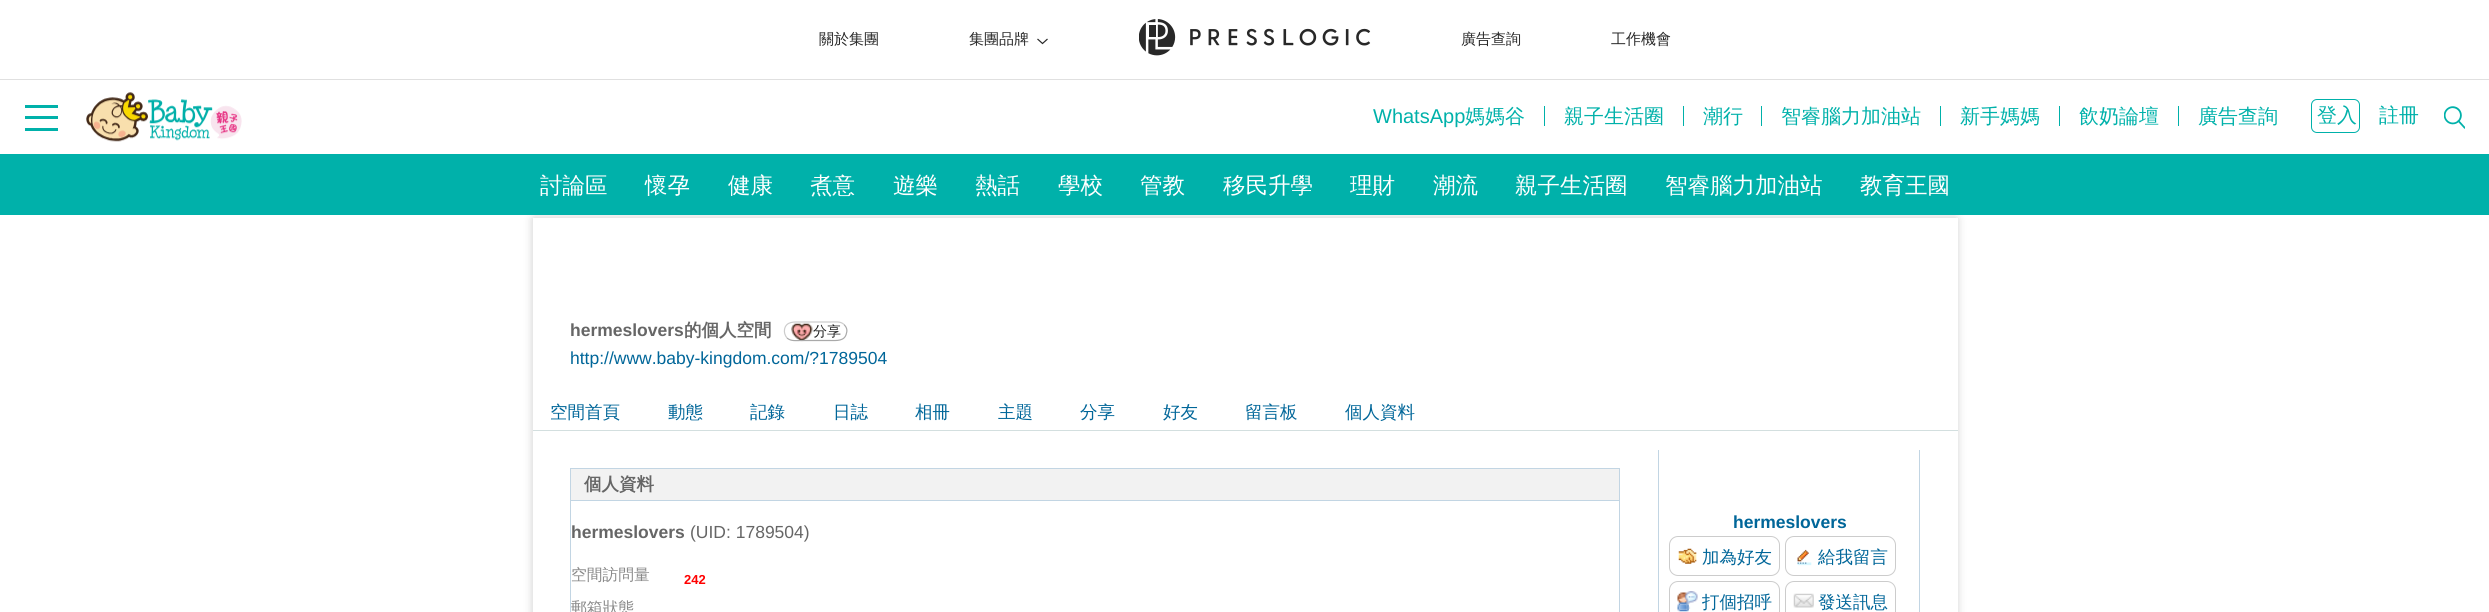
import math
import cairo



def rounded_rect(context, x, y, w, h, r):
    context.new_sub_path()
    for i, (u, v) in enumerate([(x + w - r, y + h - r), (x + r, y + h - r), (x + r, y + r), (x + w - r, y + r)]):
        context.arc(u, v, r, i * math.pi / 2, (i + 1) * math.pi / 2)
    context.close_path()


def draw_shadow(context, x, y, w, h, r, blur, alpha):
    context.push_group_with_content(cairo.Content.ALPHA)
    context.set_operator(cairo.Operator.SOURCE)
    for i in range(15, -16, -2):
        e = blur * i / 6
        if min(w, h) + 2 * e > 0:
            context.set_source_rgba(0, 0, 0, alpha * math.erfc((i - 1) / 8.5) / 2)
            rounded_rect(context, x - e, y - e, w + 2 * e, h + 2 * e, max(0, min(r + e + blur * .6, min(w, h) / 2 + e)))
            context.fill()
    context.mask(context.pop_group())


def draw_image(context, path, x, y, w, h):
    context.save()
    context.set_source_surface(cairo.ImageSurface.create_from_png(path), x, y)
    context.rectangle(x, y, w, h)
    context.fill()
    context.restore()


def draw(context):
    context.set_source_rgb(1, 1, 1)
    context.paint()
    context.set_source_rgb(224 / 255, 224 / 255, 224 / 255)
    context.rectangle(0, 79, 2489, 1)
    context.fill()
    context.new_path()
    context.move_to(1047.5, 39)
    context.line_to(1042.5, 43.5)
    context.line_to(1037.5, 39)
    context.set_source_rgb(40 / 255, 40 / 255, 40 / 255)
    context.set_line_width(1.2)
    context.stroke()
    draw_image(context, "images/1.png", 1139, 19, 232, 37)
    context.set_source_rgb(0, 177 / 255, 170 / 255)
    context.rectangle(1544, 106, 1, 20)
    context.fill()
    context.rectangle(1683, 106, 1, 20)
    context.fill()
    context.rectangle(1761, 106, 1, 20)
    context.fill()
    context.rectangle(1940, 106, 1, 20)
    context.fill()
    context.rectangle(2059, 106, 1, 20)
    context.fill()
    context.rectangle(2178, 106, 1, 20)
    context.fill()
    context.save()
    context.set_fill_rule(cairo.FillRule.EVEN_ODD)
    context.new_path()
    context.move_to(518, 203)
    context.line_to(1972, 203)
    context.line_to(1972, 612)
    context.line_to(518, 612)
    context.close_path()
    context.move_to(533, 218)
    context.line_to(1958, 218)
    context.line_to(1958, 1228)
    context.line_to(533, 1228)
    context.close_path()
    context.clip()
    context.set_source_rgb(130 / 255, 130 / 255, 130 / 255)
    draw_shadow(context, 534, 219, 1422, 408, 0, 5, 0.5)
    context.restore()
    context.rectangle(0, 154, 2489, 61)
    context.fill()
    context.rectangle(25, 105, 33, 3)
    context.fill()
    context.rectangle(25, 116, 33, 3)
    context.fill()
    context.rectangle(25, 128, 33, 3)
    context.fill()
    draw_image(context, "images/2.png", 86, 92, 156, 50)
    rounded_rect(context, 2311.5, 99.5, 48, 33, 5.5)
    context.set_line_width(1)
    context.stroke()
    draw_image(context, "images/3.png", 2444, 106, 21, 23)
    context.set_source_rgb(1, 1, 1)
    context.rectangle(1957, 295, 1, 135)
    context.fill()
    context.set_source_rgb(211 / 255, 223 / 255, 223 / 255)
    context.rectangle(533, 430, 1425, 1)
    context.fill()
    draw_image(context, "images/4.png", 791, 323, 22, 19)
    context.new_path()
    context.move_to(844, 324.5)
    context.curve_to(846.5, 327, 847.5, 330, 846.5, 333)
    context.curve_to(845, 341.5, 836.5, 340.5, 830, 340.5)
    context.line_to(801, 340.5)
    context.curve_to(796.5, 340.5, 791, 341.5, 787, 338)
    context.set_source_rgb(169 / 255, 169 / 255, 169 / 255)
    context.set_line_width(1.2)
    context.stroke()
    context.new_path()
    context.move_to(787, 338)
    context.curve_to(785, 335.5, 784, 332.5, 784.5, 329.5)
    context.curve_to(786, 321, 794.5, 322, 801, 322)
    context.line_to(830, 322)
    context.curve_to(835, 322, 840.5, 321, 844, 324.5)
    context.set_source_rgb(204 / 255, 204 / 255, 204 / 255)
    context.stroke()
    context.set_source_rgb(194 / 255, 213 / 255, 227 / 255)
    context.rectangle(1619, 468, 1, 144)
    context.fill()
    context.rectangle(570, 468, 1, 144)
    context.fill()
    context.set_source_rgb(242 / 255, 242 / 255, 242 / 255)
    context.rectangle(571, 469, 1048, 31)
    context.fill()
    context.set_source_rgb(194 / 255, 213 / 255, 227 / 255)
    context.rectangle(571, 468, 1048, 1)
    context.fill()
    context.rectangle(571, 500, 1048, 1)
    context.fill()
    context.rectangle(1919, 450, 1, 162)
    context.fill()
    context.rectangle(1658, 450, 1, 162)
    context.fill()
    rounded_rect(context, 1669.5, 536.5, 110, 39, 8.5)
    context.set_source_rgb(204 / 255, 204 / 255, 204 / 255)
    context.set_line_width(1)
    context.stroke()
    draw_image(context, "images/5.png", 1678, 548, 19, 16)
    rounded_rect(context, 1785.5, 536.5, 110, 39, 8.5)
    context.stroke()
    draw_image(context, "images/6.png", 1797, 549, 15, 17)
    rounded_rect(context, 1669.5, 581.5, 110, 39, 8.5)
    context.stroke()
    draw_image(context, "images/7.png", 1677, 591, 21, 21)
    rounded_rect(context, 1785.5, 581.5, 110, 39, 8.5)
    context.stroke()
    draw_image(context, "images/8.png", 1793, 593, 21, 15)
    context.select_font_face("WenQuanYi Zen Hei Medium")
    context.set_font_size(15)
    context.set_source_rgb(40 / 255, 40 / 255, 40 / 255)
    context.move_to(819, 44)
    context.show_text("關於集團")
    context.move_to(969, 44)
    context.show_text("集團品牌")
    context.move_to(1461, 44)
    context.show_text("廣告查詢")
    context.move_to(1611, 44)
    context.show_text("工作機會")
    context.select_font_face("Liberation Sans")
    context.set_font_size(20)
    context.set_source_rgb(0, 177 / 255, 170 / 255)
    context.move_to(1373, 123)
    context.show_text("WhatsApp")
    context.select_font_face("WenQuanYi Zen Hei Medium")
    context.move_to(1465, 123)
    context.show_text("媽媽谷")
    context.move_to(1564, 123)
    context.show_text("親子生活圈")
    context.move_to(1703, 123)
    context.show_text("潮行")
    context.move_to(1781, 123)
    context.show_text("智睿腦力加油站")
    context.move_to(1960, 123)
    context.show_text("新手媽媽")
    context.move_to(2079, 123)
    context.show_text("飲奶論壇")
    context.move_to(2198, 123)
    context.show_text("廣告查詢")
    context.set_font_size(22.5)
    context.set_source_rgb(1, 1, 1)
    context.move_to(540, 193)
    context.show_text("討論區")
    context.move_to(645, 193)
    context.show_text("懷孕")
    context.move_to(728, 193)
    context.show_text("健康")
    context.move_to(810, 193)
    context.show_text("煮意")
    context.move_to(893, 193)
    context.show_text("遊樂")
    context.move_to(975, 193)
    context.show_text("熱話")
    context.move_to(1058, 193)
    context.show_text("學校")
    context.move_to(1140, 193)
    context.show_text("管教")
    context.move_to(1223, 193)
    context.show_text("移民升學")
    context.move_to(1350, 193)
    context.show_text("理財")
    context.move_to(1433, 193)
    context.show_text("潮流")
    context.move_to(1515, 193)
    context.show_text("親子生活圈")
    context.move_to(1665, 193)
    context.show_text("智睿腦力加油站")
    context.move_to(1860, 193)
    context.show_text("教育王國")
    context.set_font_size(20)
    context.set_source_rgb(0, 177 / 255, 170 / 255)
    context.move_to(2317, 122)
    context.show_text("登入")
    context.move_to(2379, 122)
    context.show_text("註冊")
    context.select_font_face("Liberation Sans", cairo.FontSlant.NORMAL, cairo.FontWeight.BOLD)
    context.set_font_size(17.5)
    context.set_source_rgb(102 / 255, 102 / 255, 102 / 255)
    context.move_to(570, 336)
    context.show_text("hermeslovers")
    context.select_font_face("WenQuanYi Zen Hei", cairo.FontSlant.NORMAL, cairo.FontWeight.BOLD)
    context.move_to(684, 336)
    context.show_text("的個人空間")
    context.select_font_face("WenQuanYi Zen Hei Medium")
    context.set_font_size(14)
    context.set_source_rgb(34 / 255, 34 / 255, 34 / 255)
    context.move_to(813, 336)
    context.show_text("分享")
    context.select_font_face("Liberation Sans")
    context.set_font_size(17.5)
    context.set_source_rgb(0, 102 / 255, 153 / 255)
    context.move_to(570, 364)
    context.show_text("http://www.baby-kingdom.com/?1789504")
    context.select_font_face("WenQuanYi Zen Hei Medium")
    context.move_to(550, 418)
    context.show_text("空間首頁")
    context.move_to(668, 418)
    context.show_text("動態")
    context.move_to(750, 418)
    context.show_text("記錄")
    context.move_to(833, 418)
    context.show_text("日誌")
    context.move_to(915, 418)
    context.show_text("相冊")
    context.move_to(998, 418)
    context.show_text("主題")
    context.move_to(1080, 418)
    context.show_text("分享")
    context.move_to(1163, 418)
    context.show_text("好友")
    context.move_to(1245, 418)
    context.show_text("留言板")
    context.move_to(1345, 418)
    context.show_text("個人資料")
    context.select_font_face("WenQuanYi Zen Hei", cairo.FontSlant.NORMAL, cairo.FontWeight.BOLD)
    context.set_source_rgb(102 / 255, 102 / 255, 102 / 255)
    context.move_to(584, 490)
    context.show_text("個人資料")
    context.select_font_face("Liberation Sans", cairo.FontSlant.NORMAL, cairo.FontWeight.BOLD)
    context.move_to(571, 538)
    context.show_text("hermeslovers")
    context.select_font_face("Liberation Sans")
    context.move_to(690, 538)
    context.show_text("(UID: 1789504)")
    context.select_font_face("WenQuanYi Zen Hei Medium")
    context.set_font_size(15.75)
    context.set_source_rgb(136 / 255, 136 / 255, 136 / 255)
    context.move_to(571, 580)
    context.show_text("空間訪問量")
    context.select_font_face("Liberation Sans", cairo.FontSlant.NORMAL, cairo.FontWeight.BOLD)
    context.set_font_size(13)
    context.set_source_rgb(1, 0, 0)
    context.move_to(684, 584)
    context.show_text("242")
    context.select_font_face("WenQuanYi Zen Hei Medium")
    context.set_font_size(15.75)
    context.set_source_rgb(136 / 255, 136 / 255, 136 / 255)
    context.move_to(571, 613)
    context.show_text("郵箱狀態")
    context.select_font_face("Liberation Sans", cairo.FontSlant.NORMAL, cairo.FontWeight.BOLD)
    context.set_font_size(17.5)
    context.set_source_rgb(0, 102 / 255, 153 / 255)
    context.move_to(1733, 528)
    context.show_text("hermeslovers")
    context.select_font_face("WenQuanYi Zen Hei Medium")
    context.move_to(1702, 563)
    context.show_text("加為好友")
    context.move_to(1818, 563)
    context.show_text("給我留言")
    context.move_to(1702, 608)
    context.show_text("打個招呼")
    context.move_to(1818, 608)
    context.show_text("發送訊息")


surface = cairo.ImageSurface(cairo.Format.RGB24, 2489, 612)
context = cairo.Context(surface)
options = cairo.FontOptions()
options.set_hint_metrics(cairo.HintMetrics.OFF)
options.set_hint_style(cairo.HintStyle.NONE)
context.set_font_options(options)
context.set_miter_limit(4)
draw(context)
surface.write_to_png("out.png")
